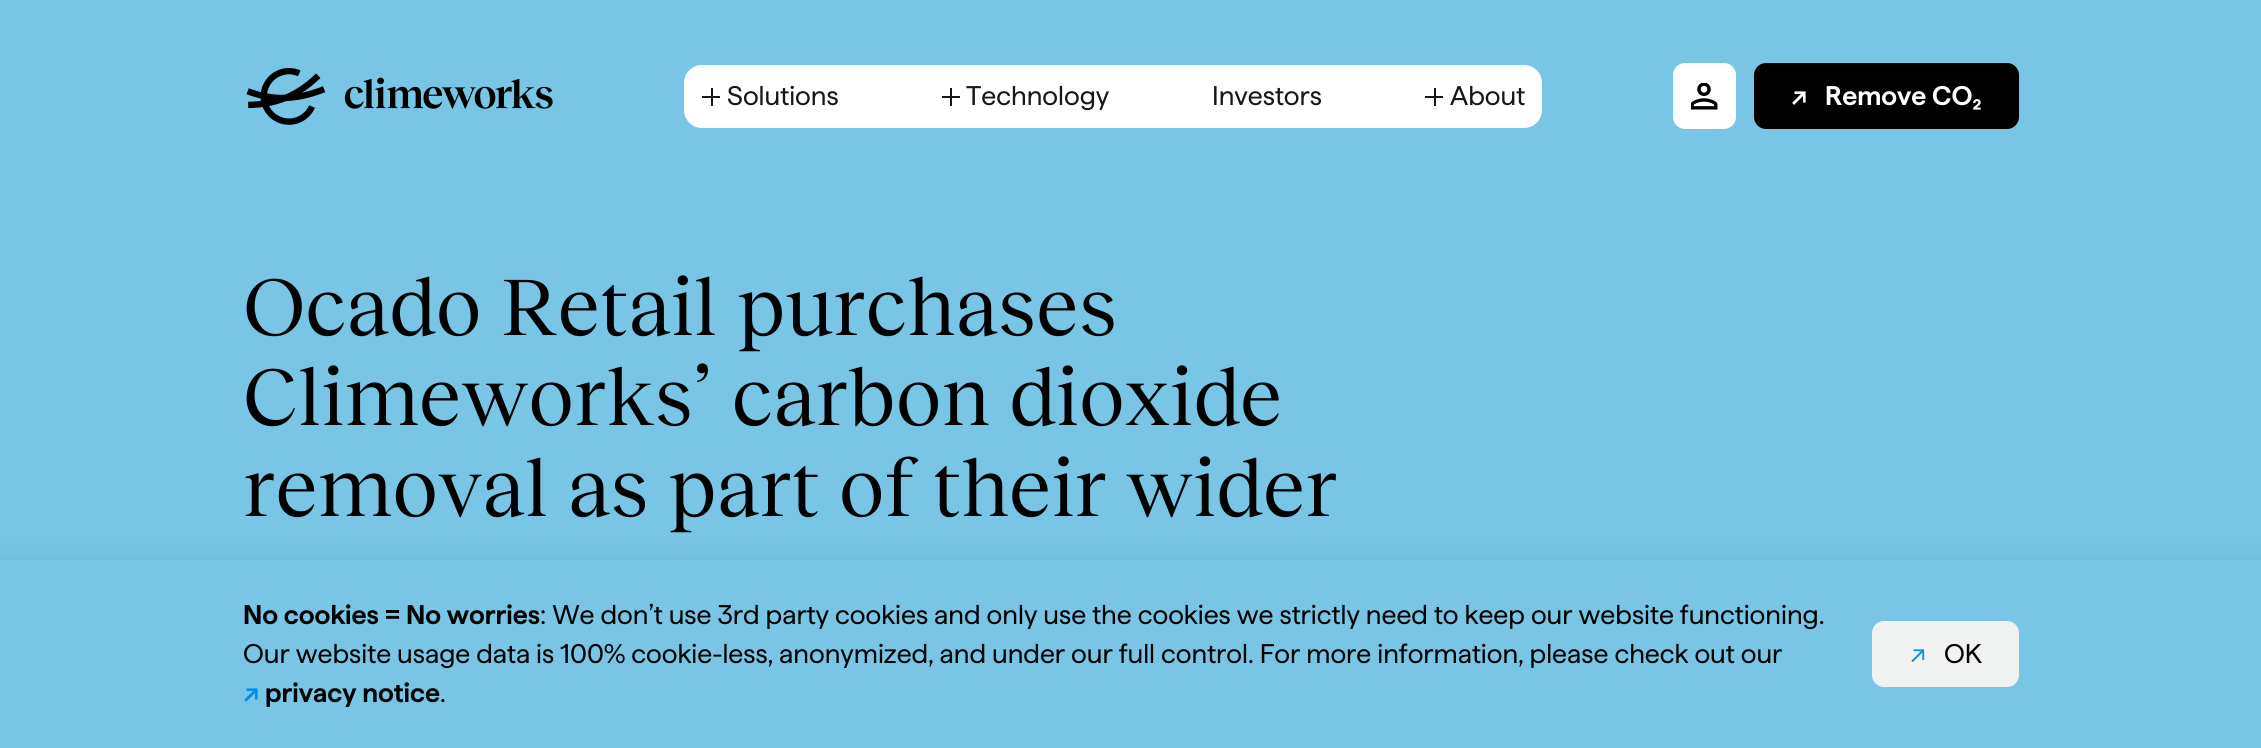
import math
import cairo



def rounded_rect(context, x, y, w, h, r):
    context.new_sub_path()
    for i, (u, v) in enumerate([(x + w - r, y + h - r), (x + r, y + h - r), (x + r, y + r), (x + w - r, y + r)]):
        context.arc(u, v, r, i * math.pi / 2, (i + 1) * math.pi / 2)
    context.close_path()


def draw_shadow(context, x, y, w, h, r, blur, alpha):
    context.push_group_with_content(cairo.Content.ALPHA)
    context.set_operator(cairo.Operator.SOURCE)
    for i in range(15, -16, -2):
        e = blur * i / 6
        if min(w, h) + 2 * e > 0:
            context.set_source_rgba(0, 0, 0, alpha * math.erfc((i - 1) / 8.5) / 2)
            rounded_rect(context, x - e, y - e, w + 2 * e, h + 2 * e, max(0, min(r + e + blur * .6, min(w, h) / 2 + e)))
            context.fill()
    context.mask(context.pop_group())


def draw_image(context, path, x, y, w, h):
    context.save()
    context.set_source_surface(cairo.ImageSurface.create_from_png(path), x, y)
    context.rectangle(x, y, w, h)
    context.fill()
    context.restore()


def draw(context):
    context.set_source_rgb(120 / 255, 197 / 255, 229 / 255)
    context.paint()
    draw_image(context, "images/1.png", 246, 68, 307, 57)
    context.set_source_rgb(1, 1, 1)
    rounded_rect(context, 684, 65, 858, 63, 18)
    context.fill()
    context.set_source_rgb(22 / 255, 23 / 255, 24 / 255)
    context.rectangle(702, 96, 18, 2)
    context.fill()
    context.rectangle(711, 88, 2, 18)
    context.fill()
    context.rectangle(942, 96, 18, 2)
    context.fill()
    context.rectangle(950, 88, 2, 18)
    context.fill()
    context.rectangle(1425, 96, 18, 2)
    context.fill()
    context.rectangle(1434, 88, 2, 18)
    context.fill()
    context.set_source_rgb(1, 1, 1)
    rounded_rect(context, 1673, 63, 63, 66, 12)
    context.fill()
    draw_image(context, "images/2.png", 1691, 83, 27, 27)
    context.set_source_rgb(0, 0, 0)
    rounded_rect(context, 1755, 64, 263, 64, 11)
    context.fill_preserve()
    context.stroke()
    context.set_source_rgb(0, 0, 0)
    draw_shadow(context, -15, 567, 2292, 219, 0, 15, 0.1)
    context.set_source_rgb(120 / 255, 197 / 255, 229 / 255)
    context.rectangle(0, 560, 2261, 188)
    context.fill()
    context.set_source_rgb(240 / 255, 241 / 255, 241 / 255)
    rounded_rect(context, 1873, 622, 145, 64, 11)
    context.fill_preserve()
    context.stroke()
    context.select_font_face("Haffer")
    context.set_font_size(27)
    context.set_source_rgb(22 / 255, 23 / 255, 24 / 255)
    context.move_to(727, 105)
    context.show_text("Solutions")
    context.move_to(966, 105)
    context.show_text("Technology")
    context.move_to(1212, 105)
    context.show_text("Investors")
    context.move_to(1450, 105)
    context.show_text("About")
    context.select_font_face("Haffer SemiBold")
    context.set_source_rgb(1, 1, 1)
    context.move_to(1791, 105)
    context.show_text("↗")
    context.move_to(1825, 105)
    context.show_text("Remove CO₂")
    context.select_font_face("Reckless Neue")
    context.set_font_size(82.5)
    context.set_source_rgb(0, 0, 0)
    context.move_to(243, 335)
    context.show_text("Ocado Retail purchases")
    context.move_to(243, 425)
    context.show_text("Climeworks’ carbon dioxide")
    context.move_to(243, 516)
    context.show_text("removal as part of their wider")
    context.select_font_face("Haffer SemiBold")
    context.set_font_size(27)
    context.move_to(243, 624)
    context.show_text("No cookies = No worries")
    context.select_font_face("Haffer")
    context.move_to(540, 624)
    context.show_text(": We don’t use 3rd party cookies and only use the cookies we strictly need to keep our website functioning.")
    context.move_to(243, 663)
    context.show_text("Our website usage data is 100% cookie-less, anonymized, and under our full control. For more information, please check out our")
    context.select_font_face("Haffer SemiBold")
    context.set_source_rgb(0, 143 / 255, 232 / 255)
    context.move_to(243, 702)
    context.show_text("↗")
    context.set_source_rgb(0, 0, 0)
    context.move_to(265, 702)
    context.show_text("privacy notice")
    context.select_font_face("Haffer")
    context.move_to(440, 702)
    context.show_text(".")
    context.set_source_rgb(0, 143 / 255, 232 / 255)
    context.move_to(1910, 663)
    context.show_text("↗")
    context.set_source_rgb(0, 0, 0)
    context.move_to(1944, 663)
    context.show_text("OK")


surface = cairo.ImageSurface(cairo.Format.RGB24, 2261, 748)
context = cairo.Context(surface)
options = cairo.FontOptions()
options.set_hint_metrics(cairo.HintMetrics.OFF)
options.set_hint_style(cairo.HintStyle.NONE)
context.set_font_options(options)
context.set_miter_limit(4)
draw(context)
surface.write_to_png("out.png")
